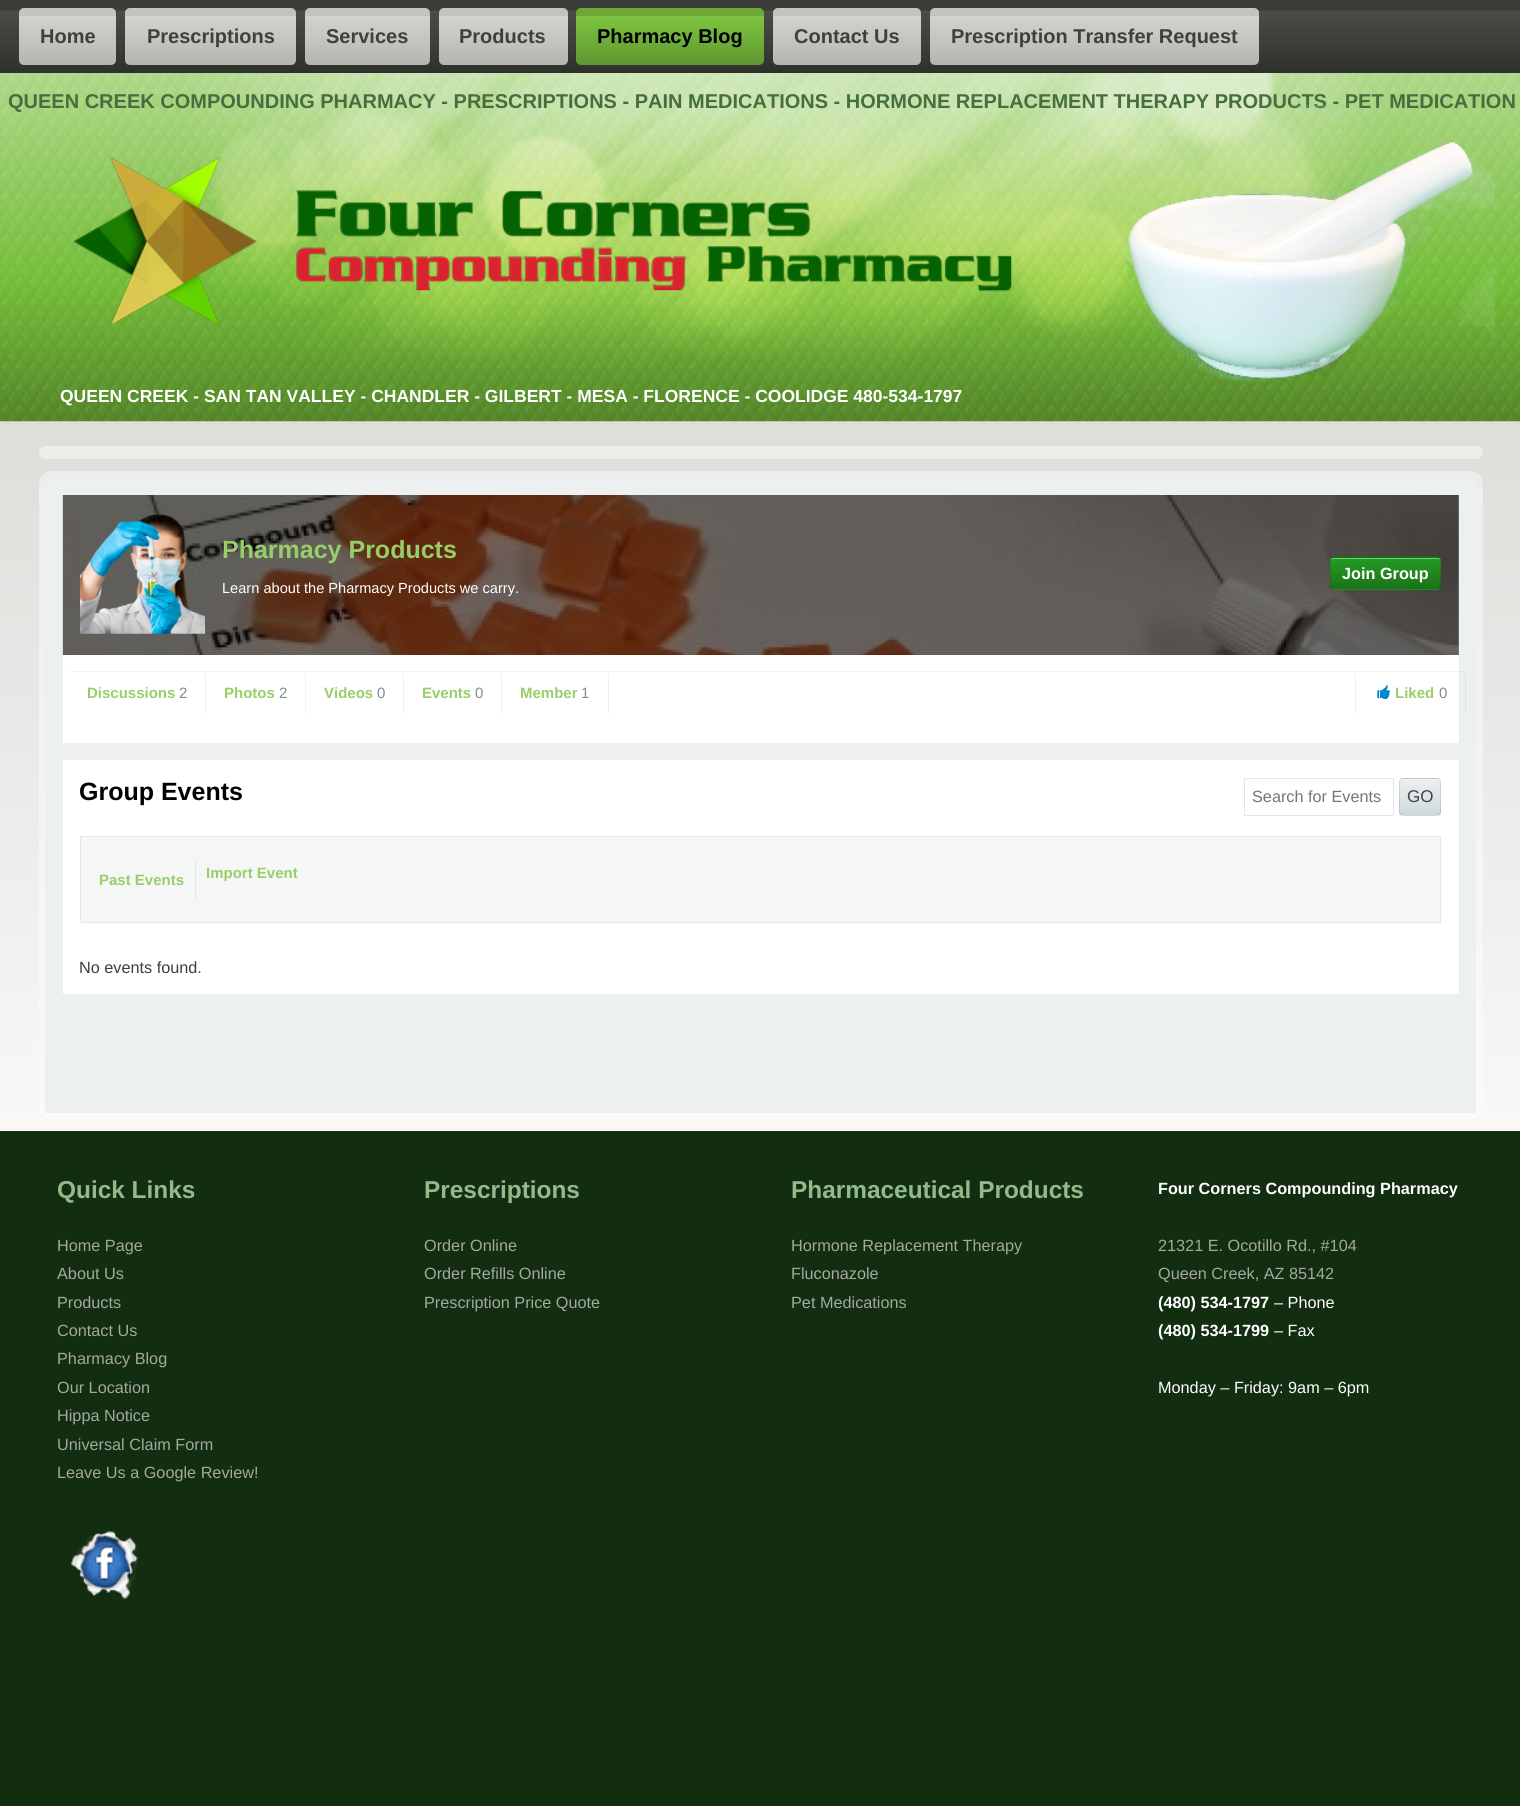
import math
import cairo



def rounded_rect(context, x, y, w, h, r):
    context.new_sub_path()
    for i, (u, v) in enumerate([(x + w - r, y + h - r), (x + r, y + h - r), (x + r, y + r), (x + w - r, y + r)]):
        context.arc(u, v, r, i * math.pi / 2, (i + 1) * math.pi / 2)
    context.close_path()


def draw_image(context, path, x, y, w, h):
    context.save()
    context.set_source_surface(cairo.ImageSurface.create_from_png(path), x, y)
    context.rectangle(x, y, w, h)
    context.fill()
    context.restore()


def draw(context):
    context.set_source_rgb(1, 1, 1)
    context.paint()
    gradient = cairo.LinearGradient(760, 0, 760, 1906)
    gradient.add_color_stop_rgba(0, 205 / 255, 207 / 255, 201 / 255, 1)
    gradient.add_color_stop_rgba(0.69, 1, 1, 1, 1)
    context.set_source(gradient)
    context.rectangle(0, 421, 1520, 710)
    context.fill()
    gradient = cairo.LinearGradient(760, 0, 760, 73)
    gradient.add_color_stop_rgba(0, 59 / 255, 61 / 255, 56 / 255, 1)
    gradient.add_color_stop_rgba(0.14, 59 / 255, 61 / 255, 56 / 255, 1)
    gradient.add_color_stop_rgba(0.15, 74 / 255, 77 / 255, 71 / 255, 1)
    gradient.add_color_stop_rgba(1, 46 / 255, 48 / 255, 44 / 255, 1)
    context.set_source(gradient)
    context.rectangle(0, 0, 1520, 73)
    context.fill()
    gradient = cairo.LinearGradient(68, 7.5, 68, 65)
    gradient.add_color_stop_rgba(0, 194 / 255, 197 / 255, 191 / 255, 1)
    gradient.add_color_stop_rgba(0.14, 194 / 255, 197 / 255, 191 / 255, 1)
    gradient.add_color_stop_rgba(0.15, 210 / 255, 211 / 255, 207 / 255, 1)
    gradient.add_color_stop_rgba(1, 179 / 255, 182 / 255, 175 / 255, 1)
    context.set_source(gradient)
    rounded_rect(context, 19, 8, 97, 57, 5)
    context.fill()
    draw_image(context, "images/1.png", 120, 15, 1, 44)
    gradient = cairo.LinearGradient(211, 7.5, 211, 65)
    gradient.add_color_stop_rgba(0, 194 / 255, 197 / 255, 191 / 255, 1)
    gradient.add_color_stop_rgba(0.14, 194 / 255, 197 / 255, 191 / 255, 1)
    gradient.add_color_stop_rgba(0.15, 210 / 255, 211 / 255, 207 / 255, 1)
    gradient.add_color_stop_rgba(1, 179 / 255, 182 / 255, 175 / 255, 1)
    context.set_source(gradient)
    rounded_rect(context, 125, 8, 171, 57, 5)
    context.fill()
    draw_image(context, "images/1.png", 300, 15, 1, 44)
    gradient = cairo.LinearGradient(368, 7.5, 368, 65)
    gradient.add_color_stop_rgba(0, 194 / 255, 197 / 255, 191 / 255, 1)
    gradient.add_color_stop_rgba(0.14, 194 / 255, 197 / 255, 191 / 255, 1)
    gradient.add_color_stop_rgba(0.15, 210 / 255, 211 / 255, 207 / 255, 1)
    gradient.add_color_stop_rgba(1, 179 / 255, 182 / 255, 175 / 255, 1)
    context.set_source(gradient)
    rounded_rect(context, 305, 8, 125, 57, 5)
    context.fill()
    draw_image(context, "images/1.png", 434, 15, 1, 44)
    gradient = cairo.LinearGradient(503, 7.5, 503, 65)
    gradient.add_color_stop_rgba(0, 194 / 255, 197 / 255, 191 / 255, 1)
    gradient.add_color_stop_rgba(0.14, 194 / 255, 197 / 255, 191 / 255, 1)
    gradient.add_color_stop_rgba(0.15, 210 / 255, 211 / 255, 207 / 255, 1)
    gradient.add_color_stop_rgba(1, 179 / 255, 182 / 255, 175 / 255, 1)
    context.set_source(gradient)
    rounded_rect(context, 439, 8, 129, 57, 5)
    context.fill()
    draw_image(context, "images/2.png", 571, 15, 2, 44)
    gradient = cairo.LinearGradient(670, 7.5, 670, 65)
    gradient.add_color_stop_rgba(0, 108 / 255, 169 / 255, 55 / 255, 1)
    gradient.add_color_stop_rgba(0.14, 108 / 255, 169 / 255, 55 / 255, 1)
    gradient.add_color_stop_rgba(0.15, 123 / 255, 193 / 255, 62 / 255, 1)
    gradient.add_color_stop_rgba(0.15, 126 / 255, 194 / 255, 66 / 255, 1)
    gradient.add_color_stop_rgba(0.22, 123 / 255, 193 / 255, 62 / 255, 1)
    gradient.add_color_stop_rgba(1, 96 / 255, 150 / 255, 49 / 255, 1)
    context.set_source(gradient)
    rounded_rect(context, 576, 8, 188, 57, 5)
    context.fill()
    draw_image(context, "images/3.png", 767, 15, 2, 44)
    gradient = cairo.LinearGradient(847, 7.5, 847, 65)
    gradient.add_color_stop_rgba(0, 194 / 255, 197 / 255, 191 / 255, 1)
    gradient.add_color_stop_rgba(0.14, 194 / 255, 197 / 255, 191 / 255, 1)
    gradient.add_color_stop_rgba(0.15, 210 / 255, 211 / 255, 207 / 255, 1)
    gradient.add_color_stop_rgba(1, 179 / 255, 182 / 255, 175 / 255, 1)
    context.set_source(gradient)
    rounded_rect(context, 773, 8, 148, 57, 5)
    context.fill()
    draw_image(context, "images/1.png", 925, 15, 1, 44)
    gradient = cairo.LinearGradient(1094, 7.5, 1094, 65)
    gradient.add_color_stop_rgba(0, 194 / 255, 197 / 255, 191 / 255, 1)
    gradient.add_color_stop_rgba(0.14, 194 / 255, 197 / 255, 191 / 255, 1)
    gradient.add_color_stop_rgba(0.15, 210 / 255, 211 / 255, 207 / 255, 1)
    gradient.add_color_stop_rgba(1, 179 / 255, 182 / 255, 175 / 255, 1)
    context.set_source(gradient)
    rounded_rect(context, 930, 8, 329, 57, 5)
    context.fill()
    draw_image(context, "images/4.png", 0, 73, 1520, 349)
    draw_image(context, "images/5.png", 73, 157, 939, 168)
    context.set_source_rgb(237 / 255, 238 / 255, 236 / 255)
    rounded_rect(context, 39, 446, 1444, 13, 6.5)
    context.fill()
    context.set_source_rgba(252 / 255, 253 / 255, 252 / 255, 0.5)
    rounded_rect(context, 39, 471, 1444, 648, 13)
    context.fill()
    context.set_source_rgb(236 / 255, 240 / 255, 241 / 255)
    context.rectangle(45, 478, 1431, 635)
    context.fill()
    context.set_source_rgb(1, 1, 1)
    context.rectangle(63, 495, 1396, 248)
    context.fill()
    draw_image(context, "images/7.png", 62, 495, 1397, 160)
    context.set_source_rgba(0, 0, 0, 0.4)
    context.rectangle(63, 495, 1396, 160)
    context.fill()
    draw_image(context, "images/8.png", 80, 514, 125, 120)
    context.save()
    rounded_rect(context, 1330, 556, 111, 34, 4)
    context.clip()
    gradient = cairo.LinearGradient(1386, 526, 1386, 558)
    gradient.add_color_stop_rgba(0, 37 / 255, 155 / 255, 36 / 255, 1)
    gradient.add_color_stop_rgba(1, 27 / 255, 114 / 255, 26 / 255, 1)
    context.set_source(gradient)
    context.rectangle(1330, 556, 111, 2)
    context.fill()
    gradient = cairo.LinearGradient(1386, 558, 1386, 589)
    gradient.add_color_stop_rgba(0, 37 / 255, 155 / 255, 36 / 255, 1)
    gradient.add_color_stop_rgba(1, 27 / 255, 114 / 255, 26 / 255, 1)
    context.set_source(gradient)
    context.rectangle(1330, 558, 111, 31)
    context.fill()
    gradient = cairo.LinearGradient(1386, 589, 1386, 620)
    gradient.add_color_stop_rgba(0, 37 / 255, 155 / 255, 36 / 255, 1)
    gradient.add_color_stop_rgba(1, 27 / 255, 114 / 255, 26 / 255, 1)
    context.set_source(gradient)
    context.rectangle(1330, 589, 111, 1)
    context.fill()
    context.restore()
    context.set_source_rgb(124 / 255, 194 / 255, 124 / 255)
    context.new_path()
    context.move_to(1334, 559)
    context.line_to(1438, 559)
    context.curve_to(1439, 559, 1440, 560, 1440, 561)
    context.curve_to(1440, 559, 1439, 558, 1438, 558)
    context.line_to(1333, 558)
    context.curve_to(1332, 558, 1331, 560, 1331, 561)
    context.curve_to(1331, 560, 1332, 559, 1334, 559)
    context.close_path()
    context.fill()
    rounded_rect(context, 1330.5, 556.5, 110, 33, 3.5)
    context.set_source_rgba(0, 0, 0, 0.1)
    context.set_line_width(1)
    context.stroke()
    context.set_source_rgba(0, 0, 0, 0.06)
    context.rectangle(70, 671, 1396, 1)
    context.fill()
    context.set_source_rgb(240 / 255, 240 / 255, 240 / 255)
    context.rectangle(205, 673, 1, 40)
    context.fill()
    context.rectangle(305, 673, 1, 40)
    context.fill()
    context.rectangle(403, 673, 1, 40)
    context.fill()
    context.rectangle(501, 673, 1, 40)
    context.fill()
    context.rectangle(608, 673, 1, 40)
    context.fill()
    context.set_source_rgb(222 / 255, 226 / 255, 227 / 255)
    context.rectangle(1465, 673, 1, 41)
    context.fill()
    context.set_source_rgb(240 / 255, 240 / 255, 240 / 255)
    context.rectangle(1355, 673, 1, 41)
    context.fill()
    draw_image(context, "images/9.png", 1377, 685, 13, 14)
    context.set_source_rgb(1, 1, 1)
    context.rectangle(63, 760, 1396, 234)
    context.fill()
    context.rectangle(1244.5, 778.5, 149, 37)
    context.set_source_rgb(227 / 255, 229 / 255, 231 / 255)
    context.stroke()
    context.save()
    rounded_rect(context, 1399, 778, 42, 38, 4)
    context.clip()
    gradient = cairo.LinearGradient(1420, 743, 1420, 779)
    gradient.add_color_stop_rgba(0, 236 / 255, 240 / 255, 241 / 255, 1)
    gradient.add_color_stop_rgba(1, 207 / 255, 217 / 255, 219 / 255, 1)
    context.set_source(gradient)
    context.rectangle(1399, 778, 42, 1)
    context.fill()
    gradient = cairo.LinearGradient(1420, 779, 1420, 815)
    gradient.add_color_stop_rgba(0, 236 / 255, 240 / 255, 241 / 255, 1)
    gradient.add_color_stop_rgba(1, 207 / 255, 217 / 255, 219 / 255, 1)
    context.set_source(gradient)
    context.rectangle(1399, 779, 42, 36)
    context.fill()
    gradient = cairo.LinearGradient(1420, 815, 1420, 851)
    gradient.add_color_stop_rgba(0, 236 / 255, 240 / 255, 241 / 255, 1)
    gradient.add_color_stop_rgba(1, 207 / 255, 217 / 255, 219 / 255, 1)
    context.set_source(gradient)
    context.rectangle(1399, 815, 42, 1)
    context.fill()
    context.restore()
    context.set_source_rgb(244 / 255, 246 / 255, 247 / 255)
    context.new_path()
    context.move_to(1402, 780)
    context.line_to(1438, 780)
    context.curve_to(1439, 780, 1440, 781, 1440, 782)
    context.curve_to(1440, 778, 1435, 779, 1432, 779)
    context.line_to(1408, 779)
    context.curve_to(1405, 779, 1400, 778, 1400, 782)
    context.curve_to(1400, 781, 1401, 780, 1402, 780)
    context.close_path()
    context.fill()
    rounded_rect(context, 1399.5, 778.5, 41, 37, 3.5)
    context.set_source_rgba(0, 0, 0, 0.1)
    context.stroke()
    context.set_source_rgb(245 / 255, 247 / 255, 247 / 255)
    context.rectangle(80.5, 836.5, 1360, 86)
    context.fill_preserve()
    context.set_source_rgb(230 / 255, 232 / 255, 232 / 255)
    context.stroke()
    context.rectangle(195, 860, 1, 39)
    context.fill()
    context.set_source_rgb(19 / 255, 45 / 255, 17 / 255)
    context.rectangle(0, 1131, 1520, 675)
    context.fill()
    draw_image(context, "images/10.png", 71, 1531, 68, 68)
    context.select_font_face("Liberation Sans", cairo.FontSlant.NORMAL, cairo.FontWeight.BOLD)
    context.set_font_size(20)
    context.set_source_rgb(62 / 255, 64 / 255, 58 / 255)
    context.move_to(40, 43)
    context.show_text("Home")
    context.move_to(147, 43)
    context.show_text("Prescriptions")
    context.move_to(326, 43)
    context.show_text("Services")
    context.move_to(459, 43)
    context.show_text("Products")
    context.set_source_rgb(0, 0, 0)
    context.move_to(597, 43)
    context.show_text("Pharmacy Blog")
    context.set_source_rgb(62 / 255, 64 / 255, 58 / 255)
    context.move_to(794, 43)
    context.show_text("Contact Us")
    context.move_to(951, 43)
    context.show_text("Prescription Transfer Request")
    context.set_source_rgb(70 / 255, 110 / 255, 63 / 255)
    context.move_to(8, 108)
    context.show_text("QUEEN CREEK COMPOUNDING PHARMACY - PRESCRIPTIONS - PAIN MEDICATIONS - HORMONE REPLACEMENT THERAPY PRODUCTS - PET MEDICATION")
    draw_image(context, "images/6.png", 1107, 105, 388, 337)
    context.set_font_size(17.5)
    context.set_source_rgb(1, 1, 1)
    context.move_to(60, 402)
    context.show_text("QUEEN CREEK - SAN TAN VALLEY - CHANDLER - GILBERT - MESA - FLORENCE - COOLIDGE 480-534-1797")
    context.set_font_size(25)
    context.set_source_rgb(152 / 255, 206 / 255, 105 / 255)
    context.move_to(222, 558)
    context.show_text("Pharmacy Products")
    context.select_font_face("Liberation Sans")
    context.set_font_size(14.6)
    context.set_source_rgb(1, 1, 1)
    context.move_to(222, 593)
    context.show_text("Learn about the Pharmacy Products we carry.")
    context.select_font_face("Liberation Sans", cairo.FontSlant.NORMAL, cairo.FontWeight.BOLD)
    context.set_font_size(16.25)
    context.move_to(1342, 579)
    context.show_text("Join Group")
    context.set_font_size(15)
    context.set_source_rgb(152 / 255, 206 / 255, 105 / 255)
    context.move_to(87, 698)
    context.show_text("Discussions")
    context.select_font_face("Liberation Sans")
    context.set_source_rgb(127 / 255, 140 / 255, 141 / 255)
    context.move_to(179, 698)
    context.show_text("2")
    context.select_font_face("Liberation Sans", cairo.FontSlant.NORMAL, cairo.FontWeight.BOLD)
    context.set_source_rgb(152 / 255, 206 / 255, 105 / 255)
    context.move_to(224, 698)
    context.show_text("Photos")
    context.select_font_face("Liberation Sans")
    context.set_source_rgb(127 / 255, 140 / 255, 141 / 255)
    context.move_to(279, 698)
    context.show_text("2")
    context.select_font_face("Liberation Sans", cairo.FontSlant.NORMAL, cairo.FontWeight.BOLD)
    context.set_source_rgb(152 / 255, 206 / 255, 105 / 255)
    context.move_to(324, 698)
    context.show_text("Videos")
    context.select_font_face("Liberation Sans")
    context.set_source_rgb(127 / 255, 140 / 255, 141 / 255)
    context.move_to(377, 698)
    context.show_text("0")
    context.select_font_face("Liberation Sans", cairo.FontSlant.NORMAL, cairo.FontWeight.BOLD)
    context.set_source_rgb(152 / 255, 206 / 255, 105 / 255)
    context.move_to(422, 698)
    context.show_text("Events")
    context.select_font_face("Liberation Sans")
    context.set_source_rgb(127 / 255, 140 / 255, 141 / 255)
    context.move_to(475, 698)
    context.show_text("0")
    context.select_font_face("Liberation Sans", cairo.FontSlant.NORMAL, cairo.FontWeight.BOLD)
    context.set_source_rgb(152 / 255, 206 / 255, 105 / 255)
    context.move_to(520, 698)
    context.show_text("Member")
    context.select_font_face("Liberation Sans")
    context.set_source_rgb(127 / 255, 140 / 255, 141 / 255)
    context.move_to(581, 698)
    context.show_text("1")
    context.select_font_face("Liberation Sans", cairo.FontSlant.NORMAL, cairo.FontWeight.BOLD)
    context.set_source_rgb(152 / 255, 206 / 255, 105 / 255)
    context.move_to(1395, 698)
    context.show_text("Liked")
    context.select_font_face("Liberation Sans")
    context.set_source_rgb(127 / 255, 140 / 255, 141 / 255)
    context.move_to(1439, 698)
    context.show_text("0")
    context.select_font_face("Liberation Sans", cairo.FontSlant.NORMAL, cairo.FontWeight.BOLD)
    context.set_font_size(25)
    context.set_source_rgb(0, 0, 0)
    context.move_to(79, 800)
    context.show_text("Group Events")
    context.select_font_face("Liberation Sans")
    context.set_font_size(16.25)
    context.set_source_rgb(117 / 255, 117 / 255, 117 / 255)
    context.move_to(1252, 802)
    context.show_text("Search for Events")
    context.set_font_size(17)
    context.set_source_rgb(66 / 255, 66 / 255, 66 / 255)
    context.move_to(1407, 802)
    context.show_text("GO")
    context.select_font_face("Liberation Sans", cairo.FontSlant.NORMAL, cairo.FontWeight.BOLD)
    context.set_font_size(15)
    context.set_source_rgb(152 / 255, 206 / 255, 105 / 255)
    context.move_to(99, 885)
    context.show_text("Past Events")
    context.move_to(206, 878)
    context.show_text("Import Event")
    context.select_font_face("Liberation Sans")
    context.set_font_size(16.25)
    context.set_source_rgb(62 / 255, 64 / 255, 58 / 255)
    context.move_to(79, 973)
    context.show_text("No events found.")
    context.select_font_face("Liberation Sans", cairo.FontSlant.NORMAL, cairo.FontWeight.BOLD)
    context.set_font_size(24.4)
    context.set_source_rgb(145 / 255, 188 / 255, 138 / 255)
    context.move_to(57, 1198)
    context.show_text("Quick Links")
    context.select_font_face("Liberation Sans")
    context.set_font_size(16.25)
    context.set_source_rgb(164 / 255, 168 / 255, 159 / 255)
    context.move_to(57, 1251)
    context.show_text("Home Page")
    context.move_to(57, 1279)
    context.show_text("About Us")
    context.move_to(57, 1308)
    context.show_text("Products")
    context.move_to(57, 1336)
    context.show_text("Contact Us")
    context.move_to(57, 1364)
    context.show_text("Pharmacy Blog")
    context.move_to(57, 1393)
    context.show_text("Our Location")
    context.move_to(57, 1421)
    context.show_text("Hippa Notice")
    context.move_to(57, 1450)
    context.show_text("Universal Claim Form")
    context.move_to(57, 1478)
    context.show_text("Leave Us a Google Review!")
    context.select_font_face("Liberation Sans", cairo.FontSlant.NORMAL, cairo.FontWeight.BOLD)
    context.set_font_size(24.4)
    context.set_source_rgb(145 / 255, 188 / 255, 138 / 255)
    context.move_to(424, 1198)
    context.show_text("Prescriptions")
    context.select_font_face("Liberation Sans")
    context.set_font_size(16.25)
    context.set_source_rgb(164 / 255, 168 / 255, 159 / 255)
    context.move_to(424, 1251)
    context.show_text("Order Online")
    context.move_to(424, 1279)
    context.show_text("Order Refills Online")
    context.move_to(424, 1308)
    context.show_text("Prescription Price Quote")
    context.select_font_face("Liberation Sans", cairo.FontSlant.NORMAL, cairo.FontWeight.BOLD)
    context.set_font_size(24.4)
    context.set_source_rgb(145 / 255, 188 / 255, 138 / 255)
    context.move_to(791, 1198)
    context.show_text("Pharmaceutical Products")
    context.select_font_face("Liberation Sans")
    context.set_font_size(16.25)
    context.set_source_rgb(164 / 255, 168 / 255, 159 / 255)
    context.move_to(791, 1251)
    context.show_text("Hormone Replacement Therapy")
    context.move_to(791, 1279)
    context.show_text("Fluconazole")
    context.move_to(791, 1308)
    context.show_text("Pet Medications")
    context.select_font_face("Liberation Sans", cairo.FontSlant.NORMAL, cairo.FontWeight.BOLD)
    context.set_source_rgb(1, 1, 1)
    context.move_to(1158, 1194)
    context.show_text("Four Corners Compounding Pharmacy")
    context.select_font_face("Liberation Sans")
    context.set_source_rgb(164 / 255, 168 / 255, 159 / 255)
    context.move_to(1158, 1251)
    context.show_text("21321 E. Ocotillo Rd., #104")
    context.move_to(1158, 1279)
    context.show_text("Queen Creek, AZ 85142")
    context.select_font_face("Liberation Sans", cairo.FontSlant.NORMAL, cairo.FontWeight.BOLD)
    context.set_source_rgb(1, 1, 1)
    context.move_to(1158, 1308)
    context.show_text("(480) 534-1797")
    context.select_font_face("Liberation Sans")
    context.move_to(1274, 1308)
    context.show_text("– Phone")
    context.select_font_face("Liberation Sans", cairo.FontSlant.NORMAL, cairo.FontWeight.BOLD)
    context.move_to(1158, 1336)
    context.show_text("(480) 534-1799")
    context.select_font_face("Liberation Sans")
    context.move_to(1274, 1336)
    context.show_text("– Fax")
    context.move_to(1158, 1393)
    context.show_text("Monday – Friday: 9am – 6pm")


surface = cairo.ImageSurface(cairo.Format.RGB24, 1520, 1806)
context = cairo.Context(surface)
options = cairo.FontOptions()
options.set_hint_metrics(cairo.HintMetrics.OFF)
options.set_hint_style(cairo.HintStyle.NONE)
context.set_font_options(options)
context.set_miter_limit(4)
draw(context)
surface.write_to_png("out.png")
